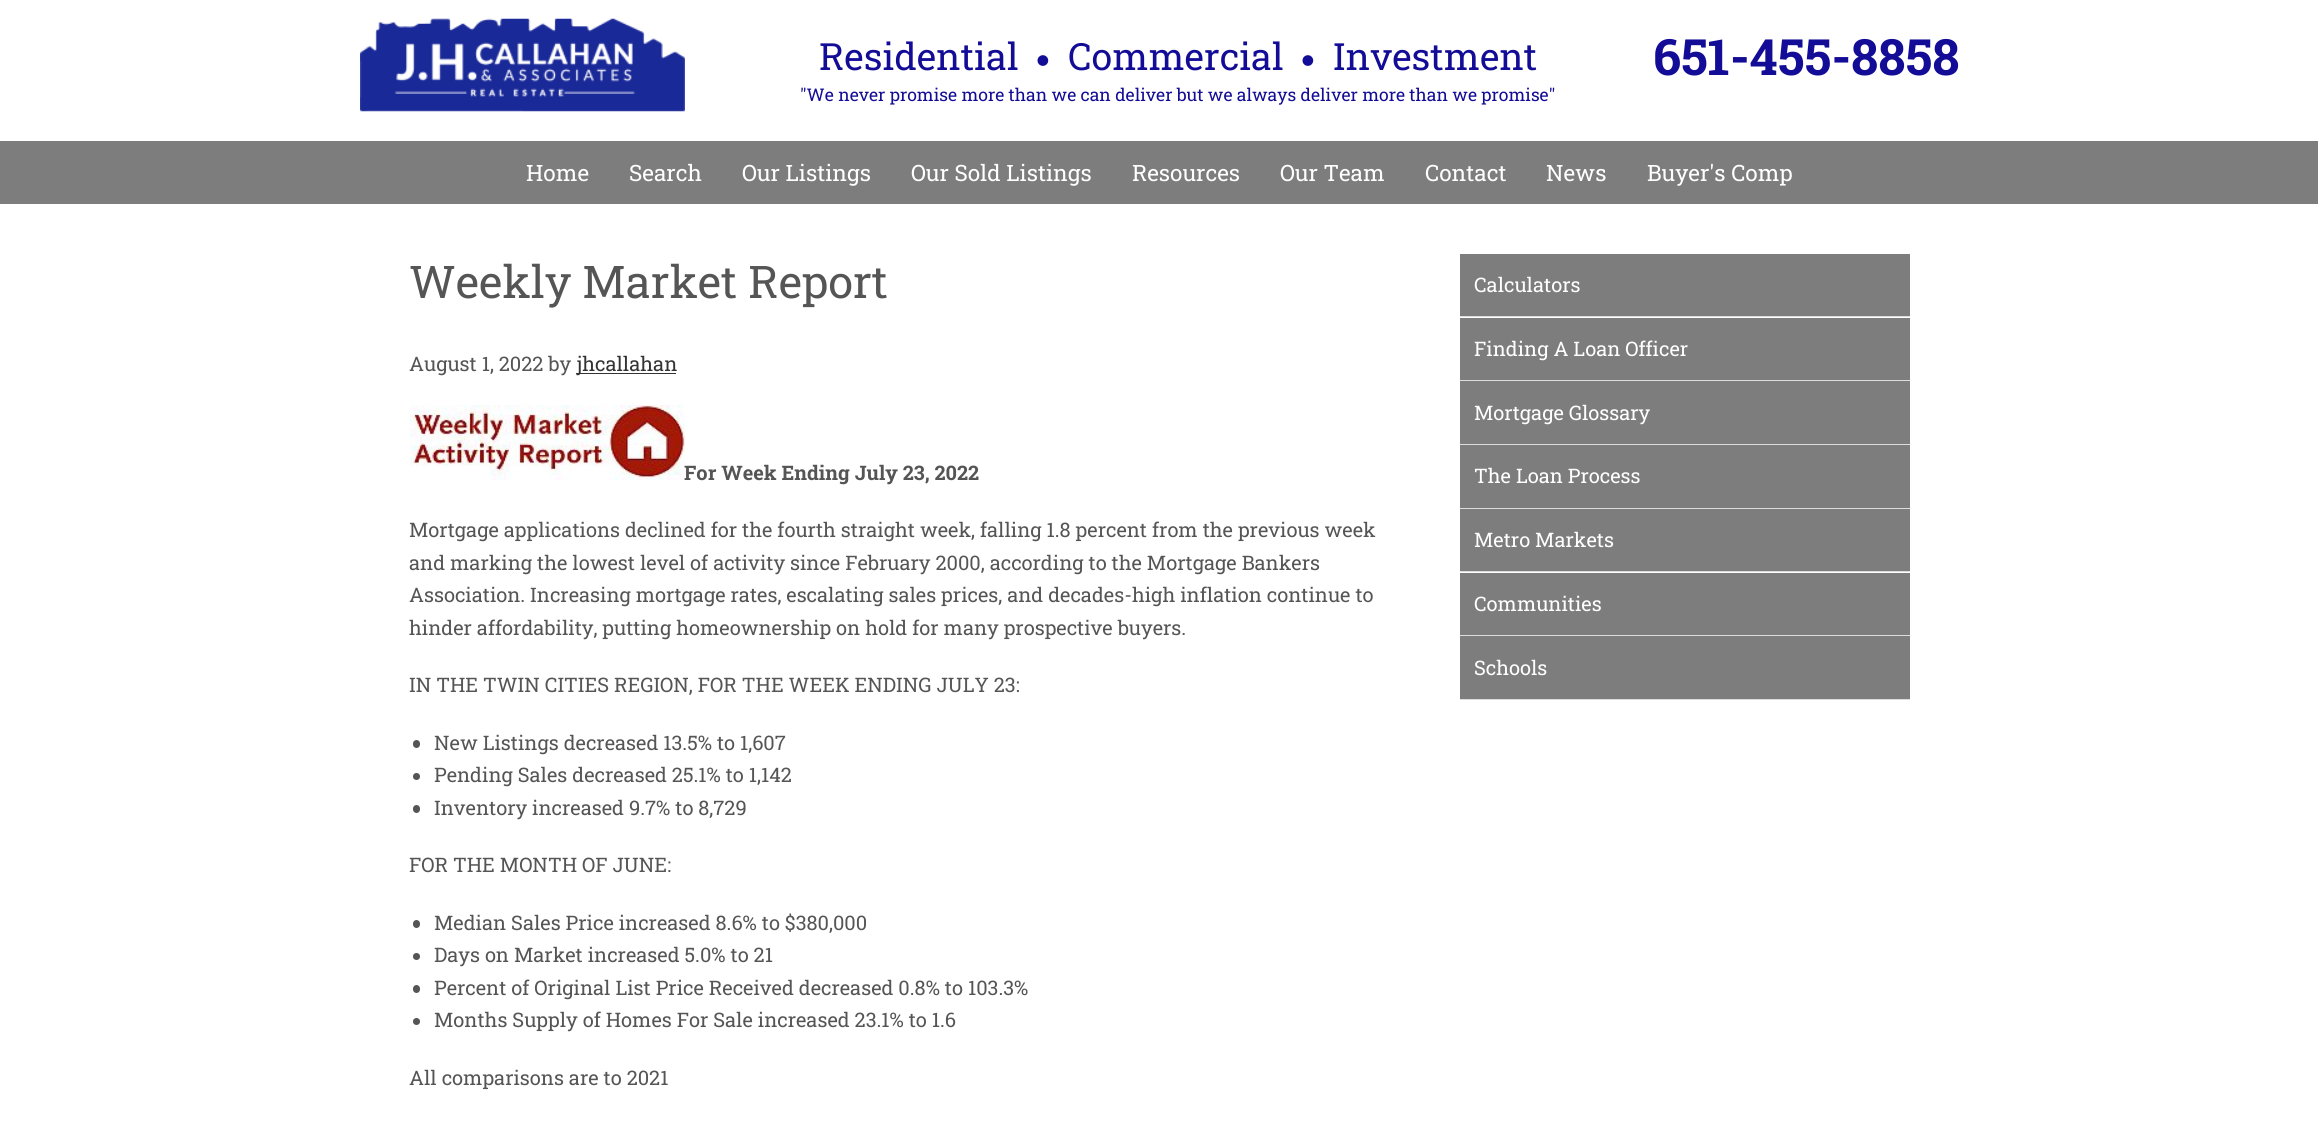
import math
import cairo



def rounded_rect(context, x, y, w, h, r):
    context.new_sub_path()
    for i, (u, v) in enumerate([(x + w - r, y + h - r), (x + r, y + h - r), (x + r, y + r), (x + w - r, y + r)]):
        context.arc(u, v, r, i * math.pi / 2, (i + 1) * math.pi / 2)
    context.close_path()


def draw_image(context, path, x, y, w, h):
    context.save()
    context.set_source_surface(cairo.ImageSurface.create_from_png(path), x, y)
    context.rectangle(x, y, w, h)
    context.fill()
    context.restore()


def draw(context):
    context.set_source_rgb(1, 1, 1)
    context.paint()
    draw_image(context, "images/1.png", 360, 18, 325, 94)
    draw_image(context, "images/2.png", 1037, 55, 12, 11)
    draw_image(context, "images/2.png", 1302, 55, 12, 11)
    context.set_source_rgb(125 / 255, 125 / 255, 125 / 255)
    context.rectangle(0, 141, 2318, 63)
    context.fill()
    context.set_source_rgb(51 / 255, 51 / 255, 51 / 255)
    context.rectangle(576, 373, 100, 1)
    context.fill()
    draw_image(context, "images/3.png", 410, 405, 275, 75)
    context.set_source_rgb(85 / 255, 85 / 255, 85 / 255)
    rounded_rect(context, 413, 740, 7, 8, 3.5)
    context.fill()
    context.arc(416.5, 776.5, 3.5, 0, 2 * math.pi)
    context.fill()
    rounded_rect(context, 413, 805, 7, 8, 3.5)
    context.fill()
    rounded_rect(context, 413, 920, 7, 8, 3.5)
    context.fill()
    context.arc(416.5, 956.5, 3.5, 0, 2 * math.pi)
    context.fill()
    rounded_rect(context, 413, 985, 7, 8, 3.5)
    context.fill()
    context.arc(416.5, 1021.5, 3.5, 0, 2 * math.pi)
    context.fill()
    context.set_source_rgb(221 / 255, 221 / 255, 221 / 255)
    context.rectangle(1460, 316, 450, 1)
    context.fill()
    context.set_source_rgb(125 / 255, 125 / 255, 125 / 255)
    context.rectangle(1460, 254, 450, 62)
    context.fill()
    context.set_source_rgb(221 / 255, 221 / 255, 221 / 255)
    context.rectangle(1460, 380, 450, 1)
    context.fill()
    context.set_source_rgb(125 / 255, 125 / 255, 125 / 255)
    context.rectangle(1460, 318, 450, 62)
    context.fill()
    context.set_source_rgb(221 / 255, 221 / 255, 221 / 255)
    context.rectangle(1460, 444, 450, 1)
    context.fill()
    context.set_source_rgb(125 / 255, 125 / 255, 125 / 255)
    context.rectangle(1460, 381, 450, 63)
    context.fill()
    context.set_source_rgb(221 / 255, 221 / 255, 221 / 255)
    context.rectangle(1460, 508, 450, 1)
    context.fill()
    context.set_source_rgb(125 / 255, 125 / 255, 125 / 255)
    context.rectangle(1460, 445, 450, 63)
    context.fill()
    context.set_source_rgb(221 / 255, 221 / 255, 221 / 255)
    context.rectangle(1460, 571, 450, 1)
    context.fill()
    context.set_source_rgb(125 / 255, 125 / 255, 125 / 255)
    context.rectangle(1460, 509, 450, 62)
    context.fill()
    context.set_source_rgb(221 / 255, 221 / 255, 221 / 255)
    context.rectangle(1460, 635, 450, 1)
    context.fill()
    context.set_source_rgb(125 / 255, 125 / 255, 125 / 255)
    context.rectangle(1460, 573, 450, 62)
    context.fill()
    context.set_source_rgb(221 / 255, 221 / 255, 221 / 255)
    context.rectangle(1460, 699, 450, 1)
    context.fill()
    context.set_source_rgb(125 / 255, 125 / 255, 125 / 255)
    context.rectangle(1460, 636, 450, 63)
    context.fill()
    context.select_font_face("Roboto Slab")
    context.set_font_size(37.5)
    context.set_source_rgb(19 / 255, 12 / 255, 150 / 255)
    context.move_to(819, 70)
    context.show_text("Residential")
    context.move_to(1068, 70)
    context.show_text("Commercial")
    context.move_to(1333, 70)
    context.show_text("Investment")
    context.set_font_size(17.5)
    context.move_to(800, 101)
    context.show_text("\"We never promise more than we can deliver but we always deliver more than we promise\"")
    context.select_font_face("Roboto Slab", cairo.FontSlant.NORMAL, cairo.FontWeight.BOLD)
    context.set_font_size(50)
    context.move_to(1653, 75)
    context.show_text("651-455-8858")
    context.select_font_face("Roboto Slab")
    context.set_font_size(22.5)
    context.set_source_rgb(1, 1, 1)
    context.move_to(526, 181)
    context.show_text("Home")
    context.move_to(629, 181)
    context.show_text("Search")
    context.move_to(742, 181)
    context.show_text("Our Listings")
    context.move_to(911, 181)
    context.show_text("Our Sold Listings")
    context.move_to(1132, 181)
    context.show_text("Resources")
    context.move_to(1280, 181)
    context.show_text("Our Team")
    context.move_to(1425, 181)
    context.show_text("Contact")
    context.move_to(1546, 181)
    context.show_text("News")
    context.move_to(1647, 181)
    context.show_text("Buyer's Comp")
    context.set_font_size(45)
    context.set_source_rgb(85 / 255, 85 / 255, 85 / 255)
    context.move_to(409, 298)
    context.show_text("Weekly Market Report")
    context.set_font_size(20)
    context.move_to(409, 371)
    context.show_text("August 1, 2022 by")
    context.set_source_rgb(51 / 255, 51 / 255, 51 / 255)
    context.move_to(577, 371)
    context.show_text("jhcallahan")
    context.select_font_face("Roboto Slab", cairo.FontSlant.NORMAL, cairo.FontWeight.BOLD)
    context.set_source_rgb(85 / 255, 85 / 255, 85 / 255)
    context.move_to(684, 480)
    context.show_text("For Week Ending July 23, 2022")
    context.select_font_face("Roboto Slab")
    context.move_to(409, 537)
    context.show_text("Mortgage applications declined for the fourth straight week, falling 1.8 percent from the previous week")
    context.move_to(409, 570)
    context.show_text("and marking the lowest level of activity since February 2000, according to the Mortgage Bankers")
    context.move_to(409, 602)
    context.show_text("Association. Increasing mortgage rates, escalating sales prices, and decades-high inflation continue to")
    context.move_to(409, 635)
    context.show_text("hinder affordability, putting homeownership on hold for many prospective buyers.")
    context.move_to(409, 692)
    context.show_text("IN THE TWIN CITIES REGION, FOR THE WEEK ENDING JULY 23:")
    context.move_to(434, 750)
    context.show_text("New Listings decreased 13.5% to 1,607")
    context.move_to(434, 782)
    context.show_text("Pending Sales decreased 25.1% to 1,142")
    context.move_to(434, 815)
    context.show_text("Inventory increased 9.7% to 8,729")
    context.move_to(409, 872)
    context.show_text("FOR THE MONTH OF JUNE:")
    context.move_to(434, 930)
    context.show_text("Median Sales Price increased 8.6% to $380,000")
    context.move_to(434, 962)
    context.show_text("Days on Market increased 5.0% to 21")
    context.move_to(434, 995)
    context.show_text("Percent of Original List Price Received decreased 0.8% to 103.3%")
    context.move_to(434, 1027)
    context.show_text("Months Supply of Homes For Sale increased 23.1% to 1.6")
    context.move_to(409, 1085)
    context.show_text("All comparisons are to 2021")
    context.set_source_rgb(1, 1, 1)
    context.move_to(1474, 292)
    context.show_text("Calculators")
    context.move_to(1474, 356)
    context.show_text("Finding A Loan Officer")
    context.move_to(1474, 420)
    context.show_text("Mortgage Glossary")
    context.move_to(1474, 483)
    context.show_text("The Loan Process")
    context.move_to(1474, 547)
    context.show_text("Metro Markets")
    context.move_to(1474, 611)
    context.show_text("Communities")
    context.move_to(1474, 675)
    context.show_text("Schools")


surface = cairo.ImageSurface(cairo.Format.RGB24, 2318, 1124)
context = cairo.Context(surface)
options = cairo.FontOptions()
options.set_hint_metrics(cairo.HintMetrics.OFF)
options.set_hint_style(cairo.HintStyle.NONE)
context.set_font_options(options)
context.set_miter_limit(4)
draw(context)
surface.write_to_png("out.png")
